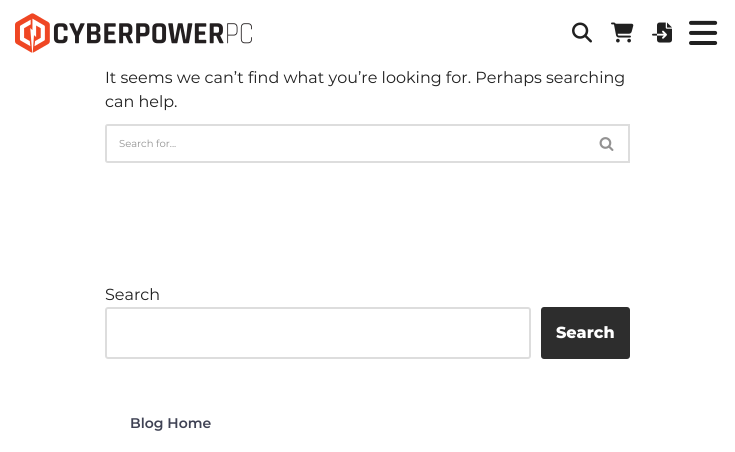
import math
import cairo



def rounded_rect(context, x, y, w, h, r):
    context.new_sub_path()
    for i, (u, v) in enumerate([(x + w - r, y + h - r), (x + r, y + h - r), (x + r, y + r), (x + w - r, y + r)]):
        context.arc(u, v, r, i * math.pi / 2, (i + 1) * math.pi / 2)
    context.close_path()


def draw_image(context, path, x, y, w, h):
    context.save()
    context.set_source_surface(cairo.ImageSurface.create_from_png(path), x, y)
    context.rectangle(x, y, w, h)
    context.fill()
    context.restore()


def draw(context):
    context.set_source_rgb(1, 1, 1)
    context.paint()
    draw_image(context, "images/1.png", 15, 13, 237, 40)
    draw_image(context, "images/2.png", 572, 22, 20, 21)
    draw_image(context, "images/3.png", 611, 22, 23, 21)
    draw_image(context, "images/4.png", 652, 22, 20, 21)
    draw_image(context, "images/5.png", 689, 20, 29, 25)
    context.set_source_rgb(221 / 255, 221 / 255, 221 / 255)
    context.set_fill_rule(cairo.FillRule.EVEN_ODD)
    context.new_path()
    context.move_to(108, 124)
    context.line_to(585, 124)
    context.line_to(585, 163)
    context.line_to(108, 163)
    context.curve_to(106, 163, 105, 162, 105, 160)
    context.line_to(105, 127)
    context.curve_to(105, 125, 106, 124, 108, 124)
    context.close_path()
    context.move_to(108, 126)
    context.line_to(585, 126)
    context.line_to(585, 161)
    context.line_to(108, 161)
    context.curve_to(107, 161, 107, 161, 107, 160)
    context.line_to(107, 127)
    context.curve_to(107, 126, 107, 126, 108, 126)
    context.close_path()
    context.fill()
    context.rectangle(585, 124, 45, 2)
    context.fill()
    context.rectangle(628, 124, 2, 39)
    context.fill()
    context.rectangle(585, 161, 45, 2)
    context.fill()
    draw_image(context, "images/6.png", 599, 137, 15, 14)
    rounded_rect(context, 106, 308, 424, 50, 2)
    context.stroke()
    context.set_source_rgb(45 / 255, 45 / 255, 45 / 255)
    rounded_rect(context, 541, 307, 89, 52, 3)
    context.fill()
    context.select_font_face("Montserrat")
    context.set_font_size(16)
    context.set_source_rgb(32 / 255, 32 / 255, 32 / 255)
    context.move_to(105, 83)
    context.show_text("It seems we can’t find what you’re looking for. Perhaps searching")
    context.move_to(105, 107)
    context.show_text("can help.")
    context.set_font_size(10)
    context.set_source_rgb(147 / 255, 147 / 255, 147 / 255)
    context.move_to(119, 147)
    context.show_text("Search for...")
    context.set_font_size(16)
    context.set_source_rgb(32 / 255, 32 / 255, 32 / 255)
    context.move_to(105, 300)
    context.show_text("Search")
    context.select_font_face("Montserrat ExtraBold")
    context.set_source_rgb(1, 1, 1)
    context.move_to(556, 338)
    context.show_text("Search")
    context.select_font_face("Montserrat SemiBold")
    context.set_font_size(14)
    context.set_source_rgb(63 / 255, 66 / 255, 84 / 255)
    context.move_to(130, 428)
    context.show_text("Blog Home")


surface = cairo.ImageSurface(cairo.Format.RGB24, 735, 452)
context = cairo.Context(surface)
options = cairo.FontOptions()
options.set_hint_metrics(cairo.HintMetrics.OFF)
options.set_hint_style(cairo.HintStyle.NONE)
context.set_font_options(options)
context.set_miter_limit(4)
draw(context)
surface.write_to_png("out.png")
